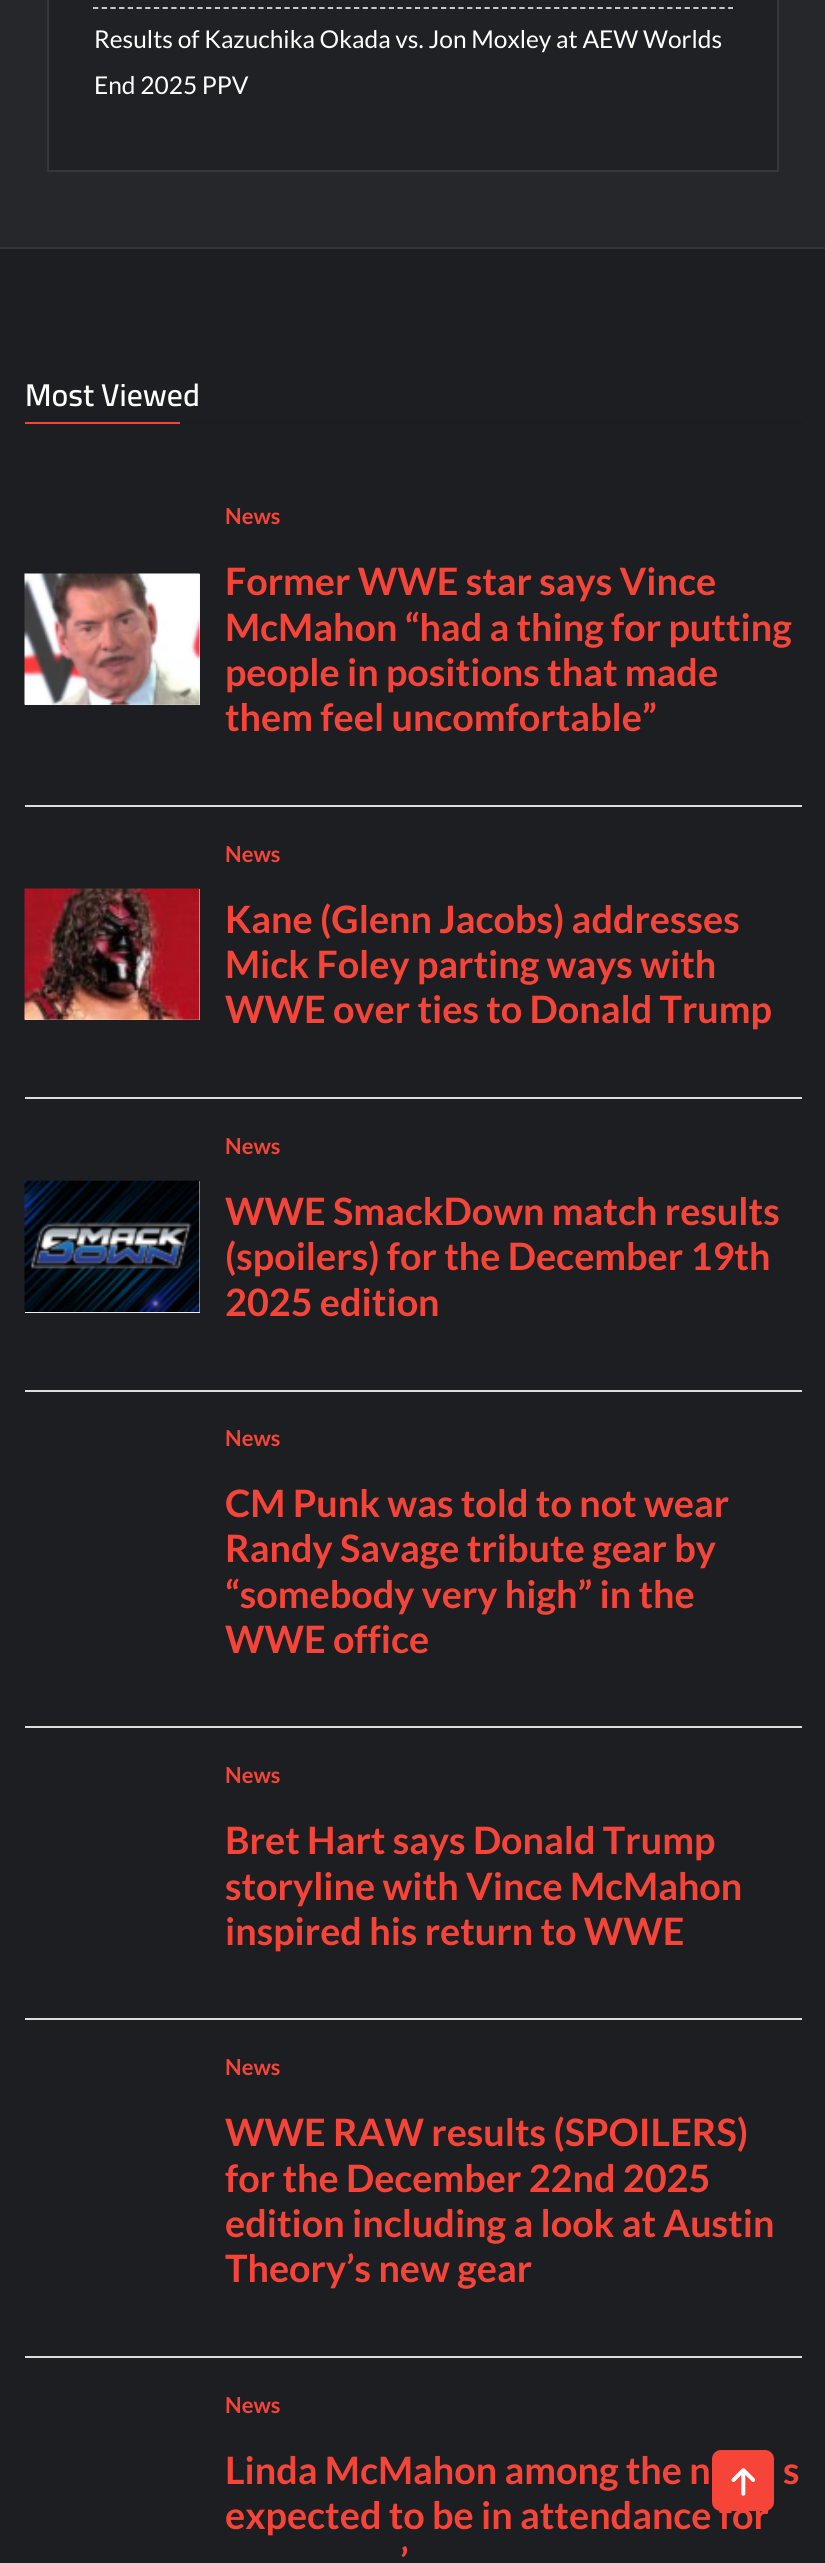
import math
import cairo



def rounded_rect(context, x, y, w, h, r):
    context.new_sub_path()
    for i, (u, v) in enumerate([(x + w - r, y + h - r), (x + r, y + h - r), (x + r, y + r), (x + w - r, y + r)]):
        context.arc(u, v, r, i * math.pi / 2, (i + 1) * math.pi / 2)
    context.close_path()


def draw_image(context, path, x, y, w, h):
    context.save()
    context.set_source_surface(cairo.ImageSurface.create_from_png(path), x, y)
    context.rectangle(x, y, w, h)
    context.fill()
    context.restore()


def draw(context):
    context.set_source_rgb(37 / 255, 39 / 255, 43 / 255)
    context.paint()
    context.set_source_rgb(32 / 255, 33 / 255, 37 / 255)
    context.rectangle(48, -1, 730, 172)
    context.fill_preserve()
    context.set_source_rgb(54 / 255, 55 / 255, 59 / 255)
    context.stroke()
    context.new_path()
    context.move_to(93, 8)
    context.line_to(733, 8)
    context.set_source_rgb(217 / 255, 217 / 255, 217 / 255)
    context.set_line_width(1.8)
    context.set_dash([5.25, 3.45])
    context.stroke()
    context.set_source_rgb(29 / 255, 30 / 255, 34 / 255)
    context.rectangle(0, 249, 825, 2314)
    context.fill()
    context.set_source_rgb(52 / 255, 53 / 255, 56 / 255)
    context.rectangle(0, 247, 825, 2)
    context.fill()
    context.set_source_rgb(26 / 255, 27 / 255, 31 / 255)
    context.rectangle(180, 422, 622, 2)
    context.fill()
    context.set_source_rgb(246 / 255, 69 / 255, 56 / 255)
    context.rectangle(25, 422, 155, 2)
    context.fill()
    context.set_source_rgb(221 / 255, 221 / 255, 221 / 255)
    context.rectangle(25, 805, 777, 2)
    context.fill()
    context.set_source_rgb(240 / 255, 240 / 255, 240 / 255)
    context.rectangle(25, 574, 175, 131)
    context.fill()
    draw_image(context, "images/1.png", 24, 573, 176, 132)
    context.set_source_rgb(221 / 255, 221 / 255, 221 / 255)
    context.rectangle(25, 1097, 777, 2)
    context.fill()
    context.set_source_rgb(240 / 255, 240 / 255, 240 / 255)
    context.rectangle(25, 889, 175, 131)
    context.fill()
    draw_image(context, "images/2.png", 24, 888, 176, 132)
    context.set_source_rgb(221 / 255, 221 / 255, 221 / 255)
    context.rectangle(25, 1390, 777, 2)
    context.fill()
    context.set_source_rgb(240 / 255, 240 / 255, 240 / 255)
    context.rectangle(25, 1181, 175, 132)
    context.fill()
    draw_image(context, "images/3.png", 24, 1180, 176, 132)
    context.set_source_rgb(221 / 255, 221 / 255, 221 / 255)
    context.rectangle(25, 1726, 777, 2)
    context.fill()
    context.rectangle(25, 2018, 777, 2)
    context.fill()
    context.rectangle(25, 2356, 777, 2)
    context.fill()
    context.set_source_rgb(246 / 255, 69 / 255, 56 / 255)
    rounded_rect(context, 712, 2450, 62, 61, 9)
    context.fill()
    draw_image(context, "images/4.png", 731, 2468, 25, 28)
    context.select_font_face("Lato")
    context.set_font_size(24.5)
    context.set_source_rgb(1, 1, 1)
    context.move_to(94, 48)
    context.show_text("Results of Kazuchika Okada vs. Jon Moxley at AEW Worlds")
    context.move_to(94, 94)
    context.show_text("End 2025 PPV")
    context.select_font_face("Cairo SemiBold")
    context.set_font_size(31.5)
    context.move_to(25, 406)
    context.show_text("Most Viewed")
    context.select_font_face("Lato", cairo.FontSlant.NORMAL, cairo.FontWeight.BOLD)
    context.set_font_size(22)
    context.set_source_rgb(246 / 255, 69 / 255, 56 / 255)
    context.move_to(225, 524)
    context.show_text("News")
    context.set_font_size(37.75)
    context.move_to(225, 595)
    context.show_text("Former WWE star says Vince")
    context.move_to(225, 641)
    context.show_text("McMahon “had a thing for putting")
    context.move_to(225, 686)
    context.show_text("people in positions that made")
    context.move_to(225, 731)
    context.show_text("them feel uncomfortable”")
    context.set_font_size(22)
    context.move_to(225, 862)
    context.show_text("News")
    context.set_font_size(37.75)
    context.move_to(225, 933)
    context.show_text("Kane (Glenn Jacobs) addresses")
    context.move_to(225, 978)
    context.show_text("Mick Foley parting ways with")
    context.move_to(225, 1023)
    context.show_text("WWE over ties to Donald Trump")
    context.set_font_size(22)
    context.move_to(225, 1154)
    context.show_text("News")
    context.set_font_size(37.75)
    context.move_to(225, 1225)
    context.show_text("WWE SmackDown match results")
    context.move_to(225, 1270)
    context.show_text("(spoilers) for the December 19th")
    context.move_to(225, 1316)
    context.show_text("2025 edition")
    context.set_font_size(22)
    context.move_to(225, 1446)
    context.show_text("News")
    context.set_font_size(37.75)
    context.move_to(225, 1517)
    context.show_text("CM Punk was told to not wear")
    context.move_to(225, 1562)
    context.show_text("Randy Savage tribute gear by")
    context.move_to(225, 1608)
    context.show_text("“somebody very high” in the")
    context.move_to(225, 1653)
    context.show_text("WWE office")
    context.set_font_size(22)
    context.move_to(225, 1783)
    context.show_text("News")
    context.set_font_size(37.75)
    context.move_to(225, 1854)
    context.show_text("Bret Hart says Donald Trump")
    context.move_to(225, 1900)
    context.show_text("storyline with Vince McMahon")
    context.move_to(225, 1945)
    context.show_text("inspired his return to WWE")
    context.set_font_size(22)
    context.move_to(225, 2075)
    context.show_text("News")
    context.set_font_size(37.75)
    context.move_to(225, 2146)
    context.show_text("WWE RAW results (SPOILERS)")
    context.move_to(225, 2192)
    context.show_text("for the December 22nd 2025")
    context.move_to(225, 2237)
    context.show_text("edition including a look at Austin")
    context.move_to(225, 2282)
    context.show_text("Theory’s new gear")
    context.set_font_size(22)
    context.move_to(225, 2413)
    context.show_text("News")
    context.set_font_size(37.75)
    context.move_to(225, 2484)
    context.show_text("Linda McMahon among the n")
    context.move_to(783, 2484)
    context.show_text("s")
    context.move_to(225, 2529)
    context.show_text("expected to be in attendance for")
    context.move_to(400, 2575)
    context.show_text("’")


surface = cairo.ImageSurface(cairo.Format.RGB24, 825, 2563)
context = cairo.Context(surface)
options = cairo.FontOptions()
options.set_hint_metrics(cairo.HintMetrics.OFF)
options.set_hint_style(cairo.HintStyle.NONE)
context.set_font_options(options)
context.set_miter_limit(4)
draw(context)
surface.write_to_png("out.png")
